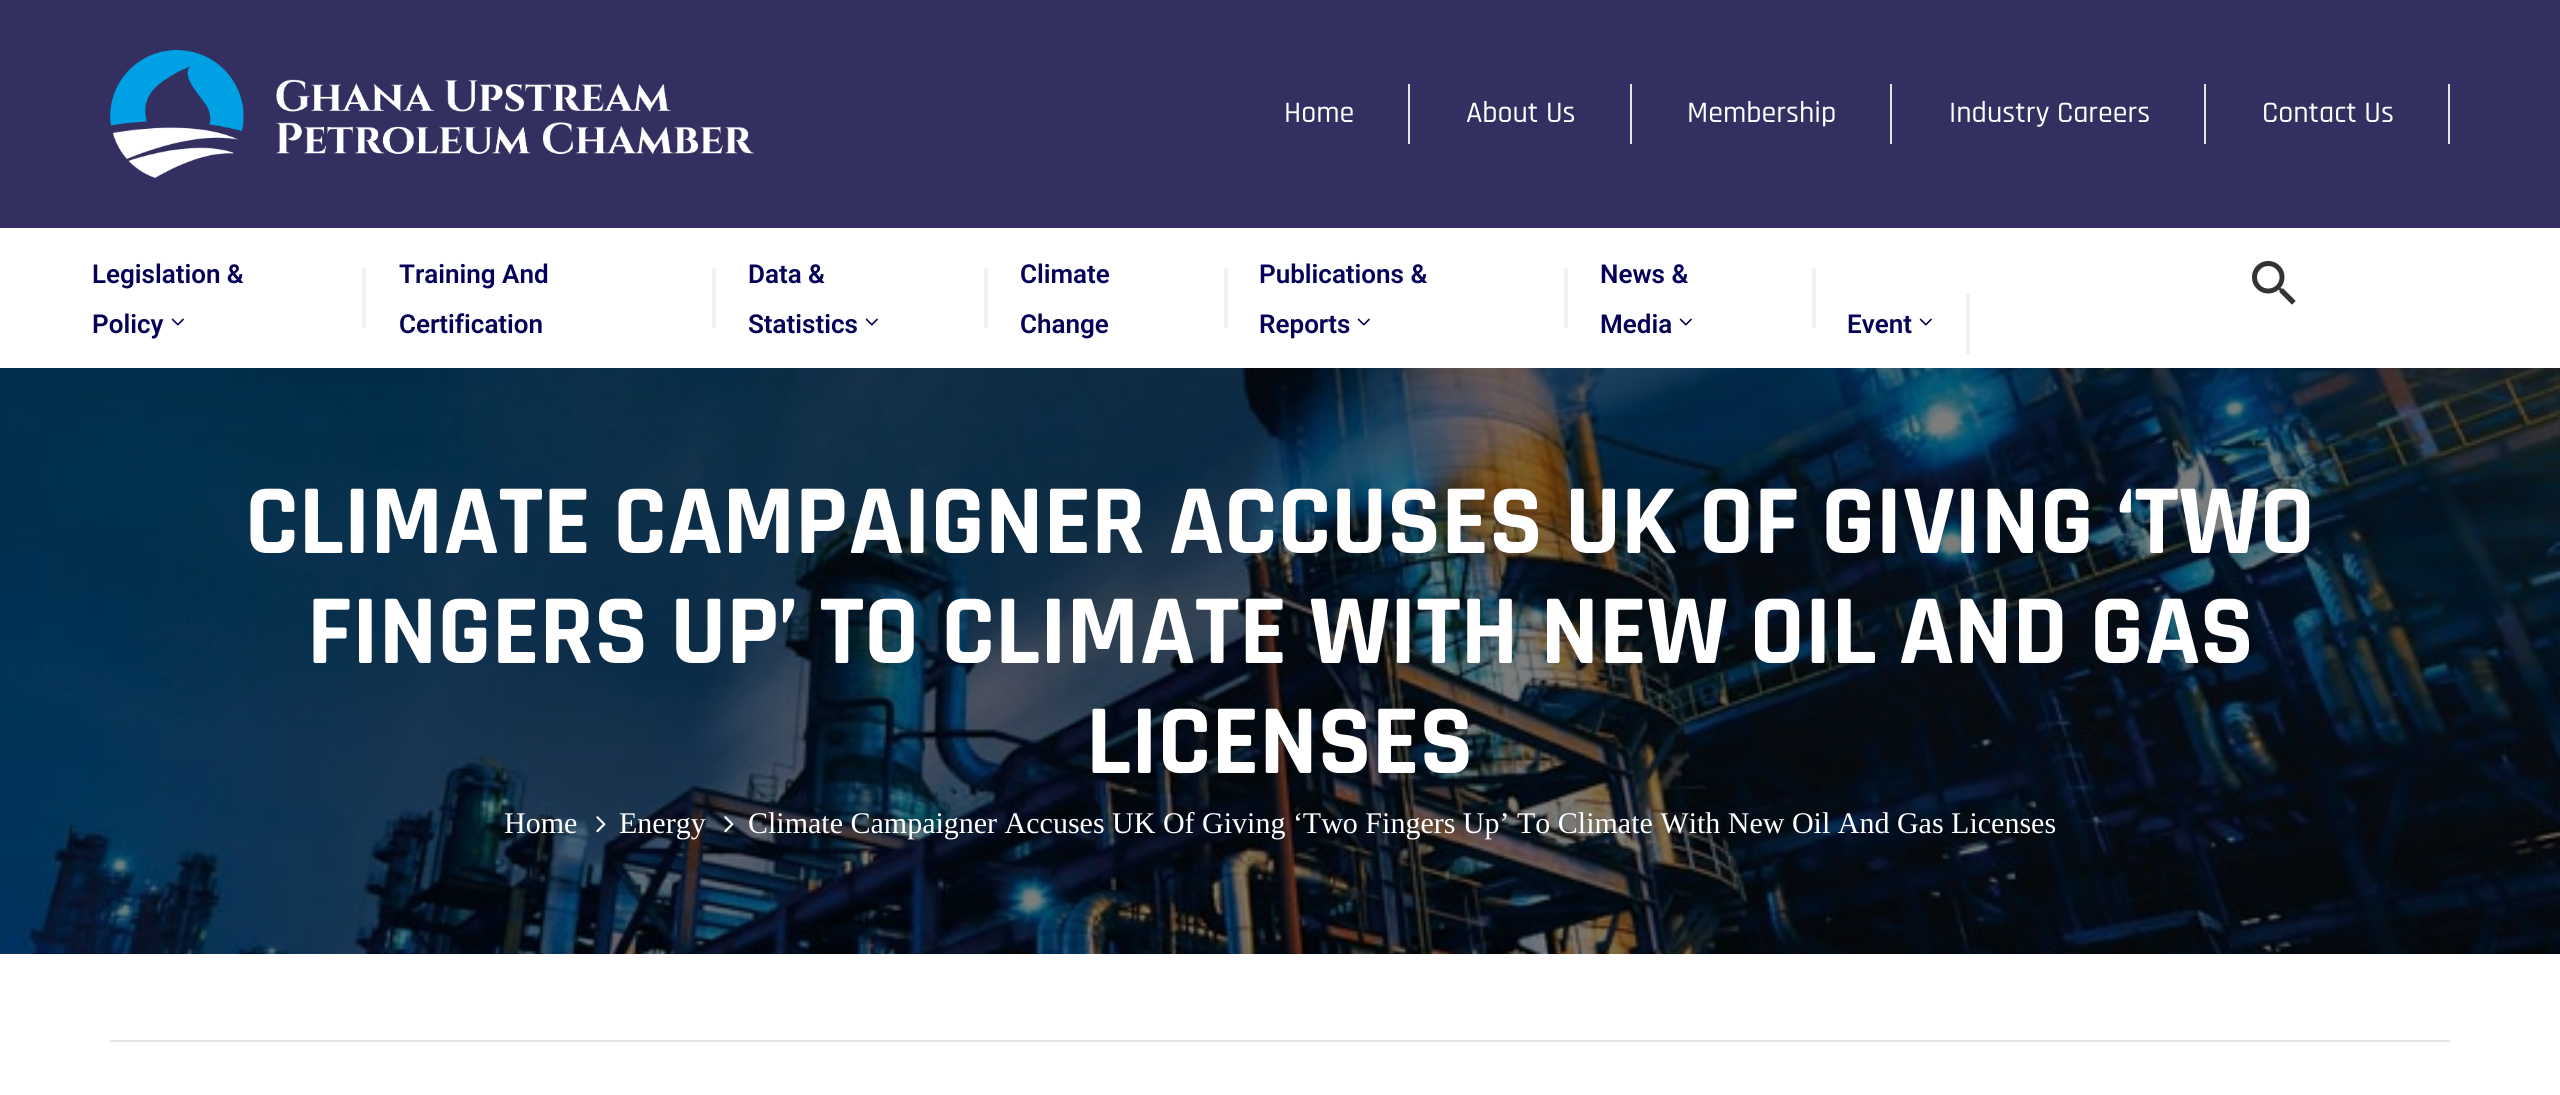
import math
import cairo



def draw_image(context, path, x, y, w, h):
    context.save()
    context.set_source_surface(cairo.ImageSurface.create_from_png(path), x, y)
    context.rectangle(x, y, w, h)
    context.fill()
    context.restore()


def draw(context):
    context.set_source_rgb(1, 1, 1)
    context.paint()
    context.set_source_rgb(52 / 255, 47 / 255, 97 / 255)
    context.rectangle(0, 0, 2560, 228)
    context.fill()
    draw_image(context, "images/1.png", 110, 50, 644, 128)
    context.set_source_rgb(229 / 255, 229 / 255, 229 / 255)
    context.rectangle(1408, 84, 2, 60)
    context.fill()
    context.rectangle(1630, 84, 2, 60)
    context.fill()
    context.rectangle(1890, 84, 2, 60)
    context.fill()
    context.rectangle(2204, 84, 2, 60)
    context.fill()
    context.rectangle(2448, 84, 2, 60)
    context.fill()
    draw_image(context, "images/2.png", 171, 318, 13, 8)
    context.set_source_rgb(241 / 255, 241 / 255, 241 / 255)
    context.rectangle(362, 268, 4, 60)
    context.fill()
    context.rectangle(712, 268, 4, 60)
    context.fill()
    draw_image(context, "images/2.png", 865, 318, 13, 8)
    context.rectangle(984, 268, 4, 60)
    context.fill()
    context.rectangle(1224, 268, 4, 60)
    context.fill()
    draw_image(context, "images/2.png", 1357, 318, 13, 8)
    context.rectangle(1564, 268, 4, 60)
    context.fill()
    draw_image(context, "images/2.png", 1679, 318, 13, 8)
    context.rectangle(1812, 268, 4, 60)
    context.fill()
    draw_image(context, "images/2.png", 1919, 318, 13, 8)
    context.rectangle(1966, 294, 4, 60)
    context.fill()
    draw_image(context, "images/3.png", 2252, 261, 44, 44)
    draw_image(context, "images/4.png", 0, 368, 2560, 586)
    draw_image(context, "images/5.png", 596, 816, 10, 17)
    draw_image(context, "images/6.png", 724, 816, 10, 17)
    context.set_source_rgb(229 / 255, 229 / 255, 229 / 255)
    context.rectangle(110, 1040, 2340, 2)
    context.fill()
    context.select_font_face("Rajdhani Medium")
    context.set_font_size(30)
    context.set_source_rgb(1, 1, 1)
    context.move_to(1284, 122)
    context.show_text("Home")
    context.move_to(1466, 122)
    context.show_text("About Us")
    context.move_to(1687, 122)
    context.show_text("Membership")
    context.move_to(1949, 122)
    context.show_text("Industry Careers")
    context.move_to(2262, 122)
    context.show_text("Contact Us")
    context.select_font_face("Roboto SemiBold")
    context.set_font_size(26)
    context.set_source_rgb(6 / 255, 2 / 255, 88 / 255)
    context.move_to(92, 283)
    context.show_text("Legislation &")
    context.move_to(92, 333)
    context.show_text("Policy")
    context.move_to(399, 283)
    context.show_text("Training And")
    context.move_to(399, 333)
    context.show_text("Certification")
    context.move_to(748, 283)
    context.show_text("Data &")
    context.move_to(748, 333)
    context.show_text("Statistics")
    context.move_to(1020, 283)
    context.show_text("Climate")
    context.move_to(1020, 333)
    context.show_text("Change")
    context.move_to(1259, 283)
    context.show_text("Publications &")
    context.move_to(1259, 333)
    context.show_text("Reports")
    context.move_to(1600, 283)
    context.show_text("News &")
    context.move_to(1600, 333)
    context.show_text("Media")
    context.move_to(1847, 333)
    context.show_text("Event")
    context.select_font_face("Rajdhani", cairo.FontSlant.NORMAL, cairo.FontWeight.BOLD)
    context.set_font_size(100)
    context.set_source_rgb(1, 1, 1)
    context.move_to(245, 553)
    context.show_text("CLIMATE CAMPAIGNER ACCUSES UK OF GIVING ‘TWO")
    context.move_to(307, 663)
    context.show_text("FINGERS UP’ TO CLIMATE WITH NEW OIL AND GAS")
    context.move_to(1086, 773)
    context.show_text("LICENSES")
    context.select_font_face("Liberation Serif")
    context.set_font_size(30)
    context.move_to(504, 833)
    context.show_text("Home")
    context.move_to(619, 833)
    context.show_text("Energy")
    context.move_to(748, 833)
    context.show_text("Climate Campaigner Accuses UK Of Giving ‘Two Fingers Up’ To Climate With New Oil And Gas Licenses")


surface = cairo.ImageSurface(cairo.Format.RGB24, 2560, 1095)
context = cairo.Context(surface)
options = cairo.FontOptions()
options.set_hint_metrics(cairo.HintMetrics.OFF)
options.set_hint_style(cairo.HintStyle.NONE)
context.set_font_options(options)
context.set_miter_limit(4)
draw(context)
surface.write_to_png("out.png")
